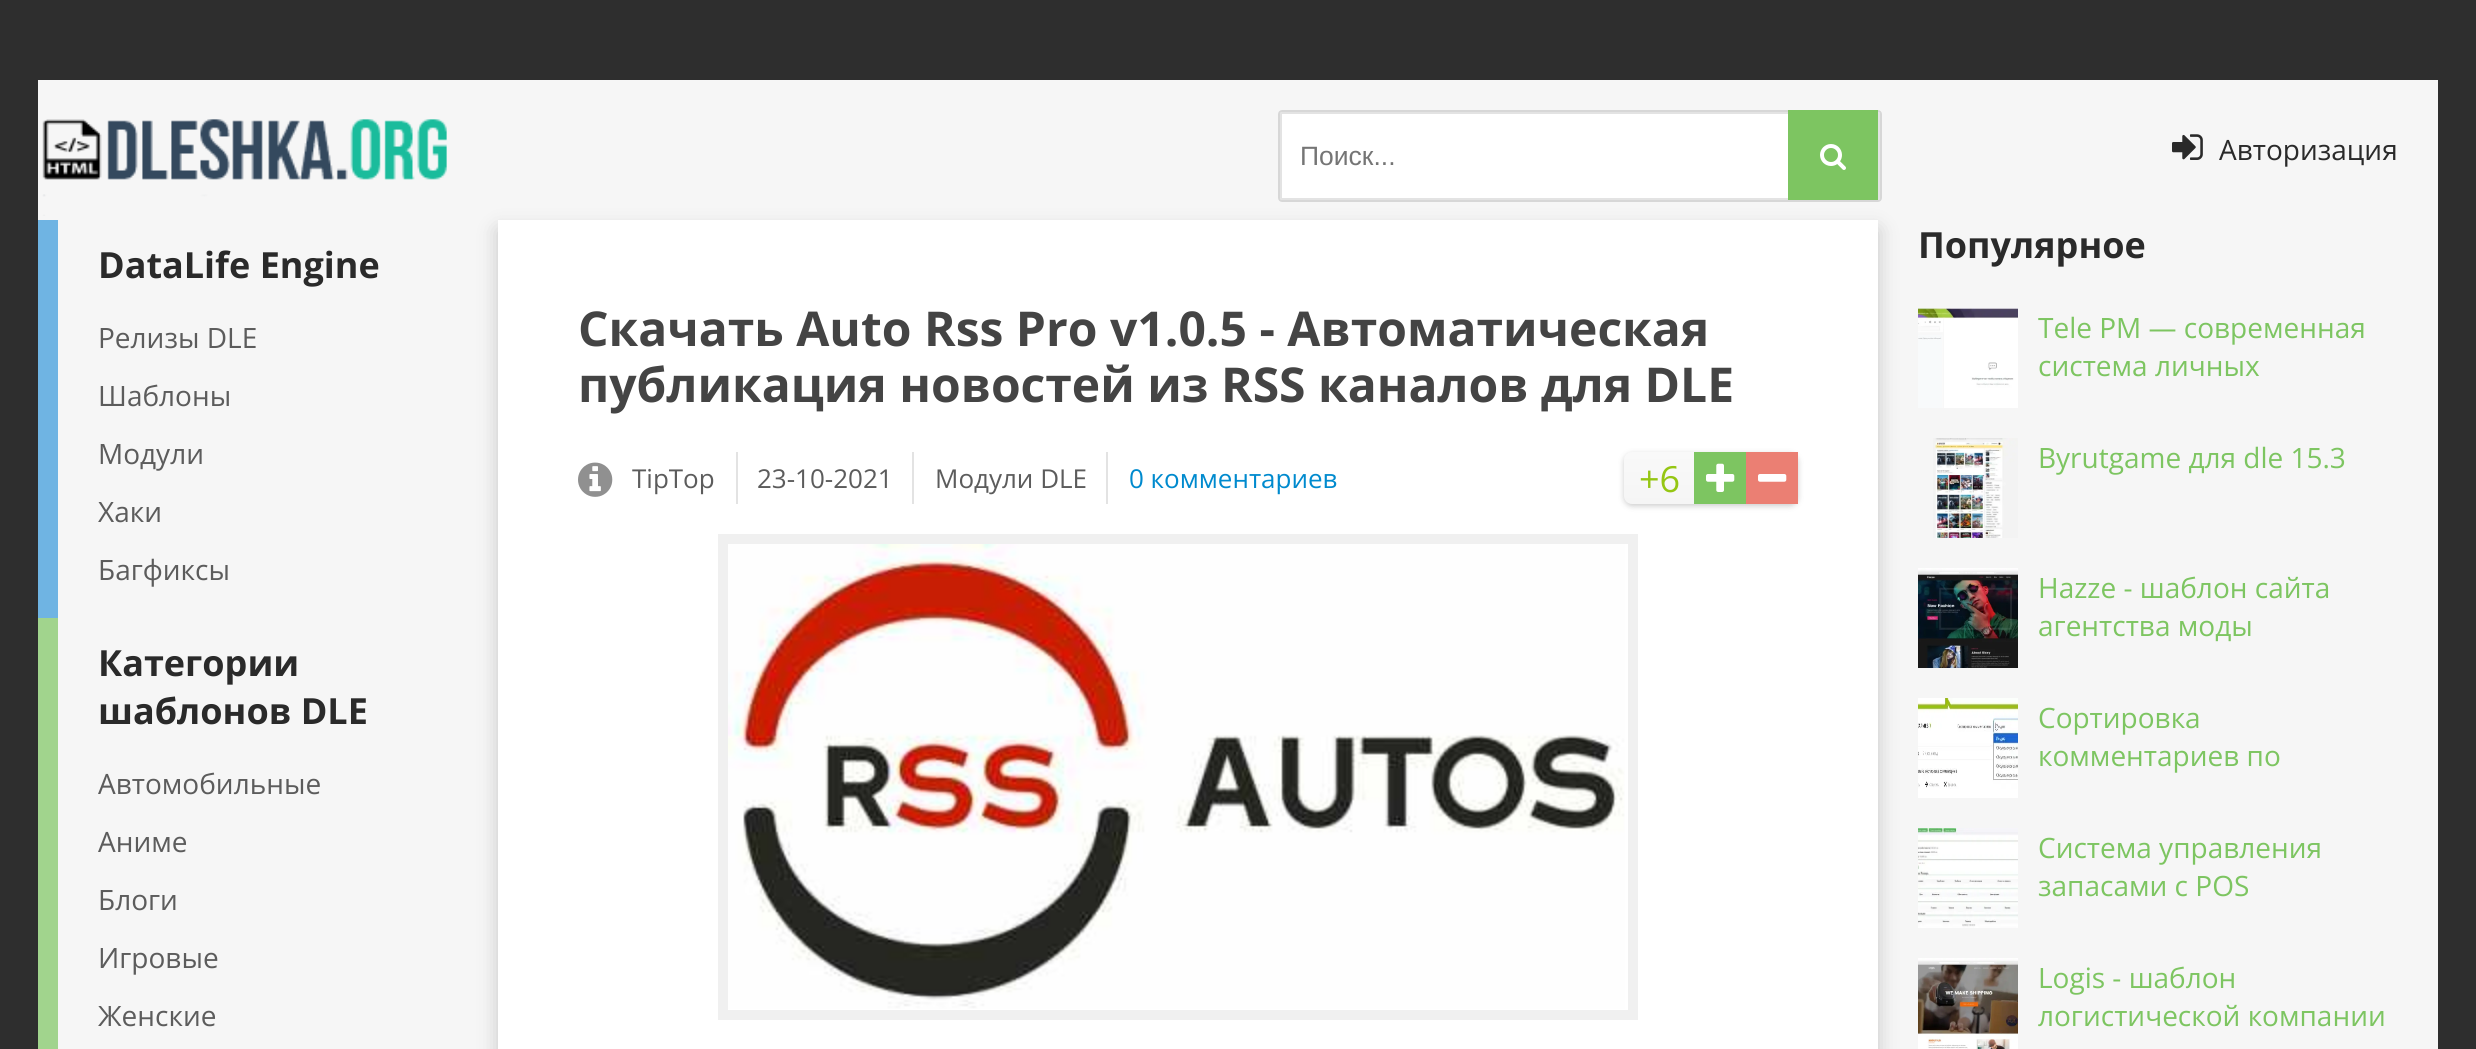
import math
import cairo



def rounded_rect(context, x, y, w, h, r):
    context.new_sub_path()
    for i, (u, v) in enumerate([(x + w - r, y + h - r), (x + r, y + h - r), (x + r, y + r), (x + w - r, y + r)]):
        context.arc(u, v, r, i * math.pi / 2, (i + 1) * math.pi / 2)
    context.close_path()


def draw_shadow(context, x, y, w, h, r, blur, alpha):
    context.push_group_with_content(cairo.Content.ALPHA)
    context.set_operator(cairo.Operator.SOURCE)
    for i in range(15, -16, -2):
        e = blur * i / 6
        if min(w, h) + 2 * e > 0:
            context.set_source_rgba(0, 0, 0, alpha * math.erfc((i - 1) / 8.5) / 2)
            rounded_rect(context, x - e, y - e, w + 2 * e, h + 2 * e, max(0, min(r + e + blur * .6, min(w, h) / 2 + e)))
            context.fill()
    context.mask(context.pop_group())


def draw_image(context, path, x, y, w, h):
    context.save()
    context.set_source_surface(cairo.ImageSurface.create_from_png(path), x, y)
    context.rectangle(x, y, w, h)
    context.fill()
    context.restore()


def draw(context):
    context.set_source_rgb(46 / 255, 46 / 255, 46 / 255)
    context.paint()
    context.set_source_rgb(246 / 255, 246 / 255, 246 / 255)
    context.rectangle(38, 80, 2400, 969)
    context.fill()
    draw_image(context, "images/1.png", 42, 119, 405, 97)
    context.set_source_rgb(1, 1, 1)
    rounded_rect(context, 1278, 110, 604, 92, 4)
    context.fill()
    rounded_rect(context, 1281, 113, 598, 86, 1)
    context.set_source_rgb(227 / 255, 227 / 255, 227 / 255)
    context.stroke()
    rounded_rect(context, 1279, 111, 602, 90, 3)
    context.set_source_rgb(215 / 255, 215 / 255, 215 / 255)
    context.stroke()
    context.set_source_rgb(125 / 255, 197 / 255, 97 / 255)
    context.rectangle(1788, 110, 90, 90)
    context.fill()
    draw_image(context, "images/2.png", 1820, 144, 26, 26)
    draw_image(context, "images/3.png", 2172, 134, 31, 26)
    context.set_source_rgb(0, 0, 0)
    draw_shadow(context, 498, 230, 1380, 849, 0, 10, 0.2)
    context.set_source_rgb(1, 1, 1)
    context.rectangle(498, 220, 1380, 829)
    context.fill()
    draw_image(context, "images/4.png", 1918, 308, 100, 100)
    draw_image(context, "images/5.png", 1933, 438, 85, 100)
    draw_image(context, "images/6.png", 1918, 568, 100, 100)
    draw_image(context, "images/7.png", 1918, 698, 100, 100)
    draw_image(context, "images/8.png", 1918, 828, 100, 100)
    draw_image(context, "images/9.png", 1918, 958, 100, 91)
    context.set_source_rgb(111 / 255, 180 / 255, 227 / 255)
    context.rectangle(38, 220, 20, 398)
    context.fill()
    context.set_source_rgb(161 / 255, 212 / 255, 141 / 255)
    context.rectangle(38, 618, 20, 431)
    context.fill()
    draw_image(context, "images/10.png", 578, 462, 35, 35)
    context.set_source_rgb(227 / 255, 227 / 255, 227 / 255)
    context.rectangle(736, 452, 2, 52)
    context.fill()
    context.rectangle(912, 452, 2, 52)
    context.fill()
    context.rectangle(1106, 452, 2, 52)
    context.fill()
    context.set_source_rgb(0, 0, 0)
    draw_shadow(context, 1624, 454, 174, 52, 8, 3, 0.2)
    gradient = cairo.LinearGradient(1711, 452, 1711, 504)
    gradient.add_color_stop_rgba(0, 249 / 255, 249 / 255, 249 / 255, 1)
    gradient.add_color_stop_rgba(1, 245 / 255, 245 / 255, 245 / 255, 1)
    context.set_source(gradient)
    rounded_rect(context, 1624, 452, 174, 52, 8)
    context.fill()
    context.set_source_rgb(125 / 255, 197 / 255, 97 / 255)
    context.rectangle(1694, 452, 52, 52)
    context.fill()
    draw_image(context, "images/11.png", 1706, 463, 29, 29)
    context.set_source_rgb(235 / 255, 127 / 255, 115 / 255)
    context.rectangle(1746, 452, 52, 52)
    context.fill()
    draw_image(context, "images/12.png", 1758, 474, 29, 8)
    context.rectangle(723, 539, 910, 476)
    context.set_source_rgb(240 / 255, 240 / 255, 240 / 255)
    context.set_line_width(10)
    context.stroke()
    draw_image(context, "images/13.png", 728, 544, 897, 465)
    context.select_font_face("Liberation Sans")
    context.set_font_size(26.5)
    context.set_source_rgb(117 / 255, 117 / 255, 117 / 255)
    context.move_to(1300, 165)
    context.show_text("Поиск...")
    context.select_font_face("Open Sans")
    context.set_font_size(28)
    context.set_source_rgb(42 / 255, 42 / 255, 42 / 255)
    context.move_to(2219, 160)
    context.show_text("Авторизация")
    context.select_font_face("Open Sans", cairo.FontSlant.NORMAL, cairo.FontWeight.BOLD)
    context.set_font_size(36)
    context.move_to(1918, 258)
    context.show_text("Популярное")
    context.select_font_face("Open Sans")
    context.set_font_size(28)
    context.set_source_rgb(125 / 255, 197 / 255, 97 / 255)
    context.move_to(2038, 338)
    context.show_text("Tele PM — современная")
    context.move_to(2038, 376)
    context.show_text("система личных")
    context.move_to(2038, 468)
    context.show_text("Byrutgame для dle 15.3")
    context.move_to(2038, 598)
    context.show_text("Hazze - шаблон сайта")
    context.move_to(2038, 636)
    context.show_text("агентства моды")
    context.move_to(2038, 728)
    context.show_text("Сортировка")
    context.move_to(2038, 766)
    context.show_text("комментариев по")
    context.move_to(2038, 858)
    context.show_text("Cистема управления")
    context.move_to(2038, 896)
    context.show_text("запасами с POS")
    context.move_to(2038, 988)
    context.show_text("Logis - шаблон")
    context.move_to(2038, 1026)
    context.show_text("логистической компании")
    context.select_font_face("Open Sans", cairo.FontSlant.NORMAL, cairo.FontWeight.BOLD)
    context.set_font_size(36)
    context.set_source_rgb(42 / 255, 42 / 255, 42 / 255)
    context.move_to(98, 278)
    context.show_text("DataLife Engine")
    context.select_font_face("Open Sans")
    context.set_font_size(28)
    context.set_source_rgb(92 / 255, 92 / 255, 92 / 255)
    context.move_to(98, 348)
    context.show_text("Релизы DLE")
    context.move_to(98, 406)
    context.show_text("Шаблоны")
    context.move_to(98, 464)
    context.show_text("Модули")
    context.move_to(98, 522)
    context.show_text("Хаки")
    context.move_to(98, 580)
    context.show_text("Багфиксы")
    context.select_font_face("Open Sans", cairo.FontSlant.NORMAL, cairo.FontWeight.BOLD)
    context.set_font_size(36)
    context.set_source_rgb(42 / 255, 42 / 255, 42 / 255)
    context.move_to(98, 676)
    context.show_text("Категории")
    context.move_to(98, 724)
    context.show_text("шаблонов DLE")
    context.select_font_face("Open Sans")
    context.set_font_size(28)
    context.set_source_rgb(92 / 255, 92 / 255, 92 / 255)
    context.move_to(98, 794)
    context.show_text("Автомобильные")
    context.move_to(98, 852)
    context.show_text("Аниме")
    context.move_to(98, 910)
    context.show_text("Блоги")
    context.move_to(98, 968)
    context.show_text("Игровые")
    context.move_to(98, 1026)
    context.show_text("Женские")
    context.select_font_face("Open Sans", cairo.FontSlant.NORMAL, cairo.FontWeight.BOLD)
    context.set_font_size(48)
    context.set_source_rgb(68 / 255, 68 / 255, 68 / 255)
    context.move_to(578, 346)
    context.show_text("Скачать Auto Rss Pro v1.0.5 - Автоматическая")
    context.move_to(578, 402)
    context.show_text("публикация новостей из RSS каналов для DLE")
    context.select_font_face("Open Sans")
    context.set_font_size(26)
    context.set_source_rgb(92 / 255, 92 / 255, 92 / 255)
    context.move_to(632, 488)
    context.show_text("TipTop")
    context.move_to(757, 488)
    context.show_text("23-10-2021")
    context.move_to(935, 488)
    context.show_text("Mодули DLE")
    context.set_source_rgb(0, 138 / 255, 206 / 255)
    context.move_to(1129, 488)
    context.show_text("0 комментариев")
    context.set_font_size(36)
    context.set_source_rgb(149 / 255, 198 / 255, 19 / 255)
    context.move_to(1639, 492)
    context.show_text("+6")


surface = cairo.ImageSurface(cairo.Format.RGB24, 2476, 1049)
context = cairo.Context(surface)
options = cairo.FontOptions()
options.set_hint_metrics(cairo.HintMetrics.OFF)
options.set_hint_style(cairo.HintStyle.NONE)
context.set_font_options(options)
context.set_miter_limit(4)
draw(context)
surface.write_to_png("out.png")
